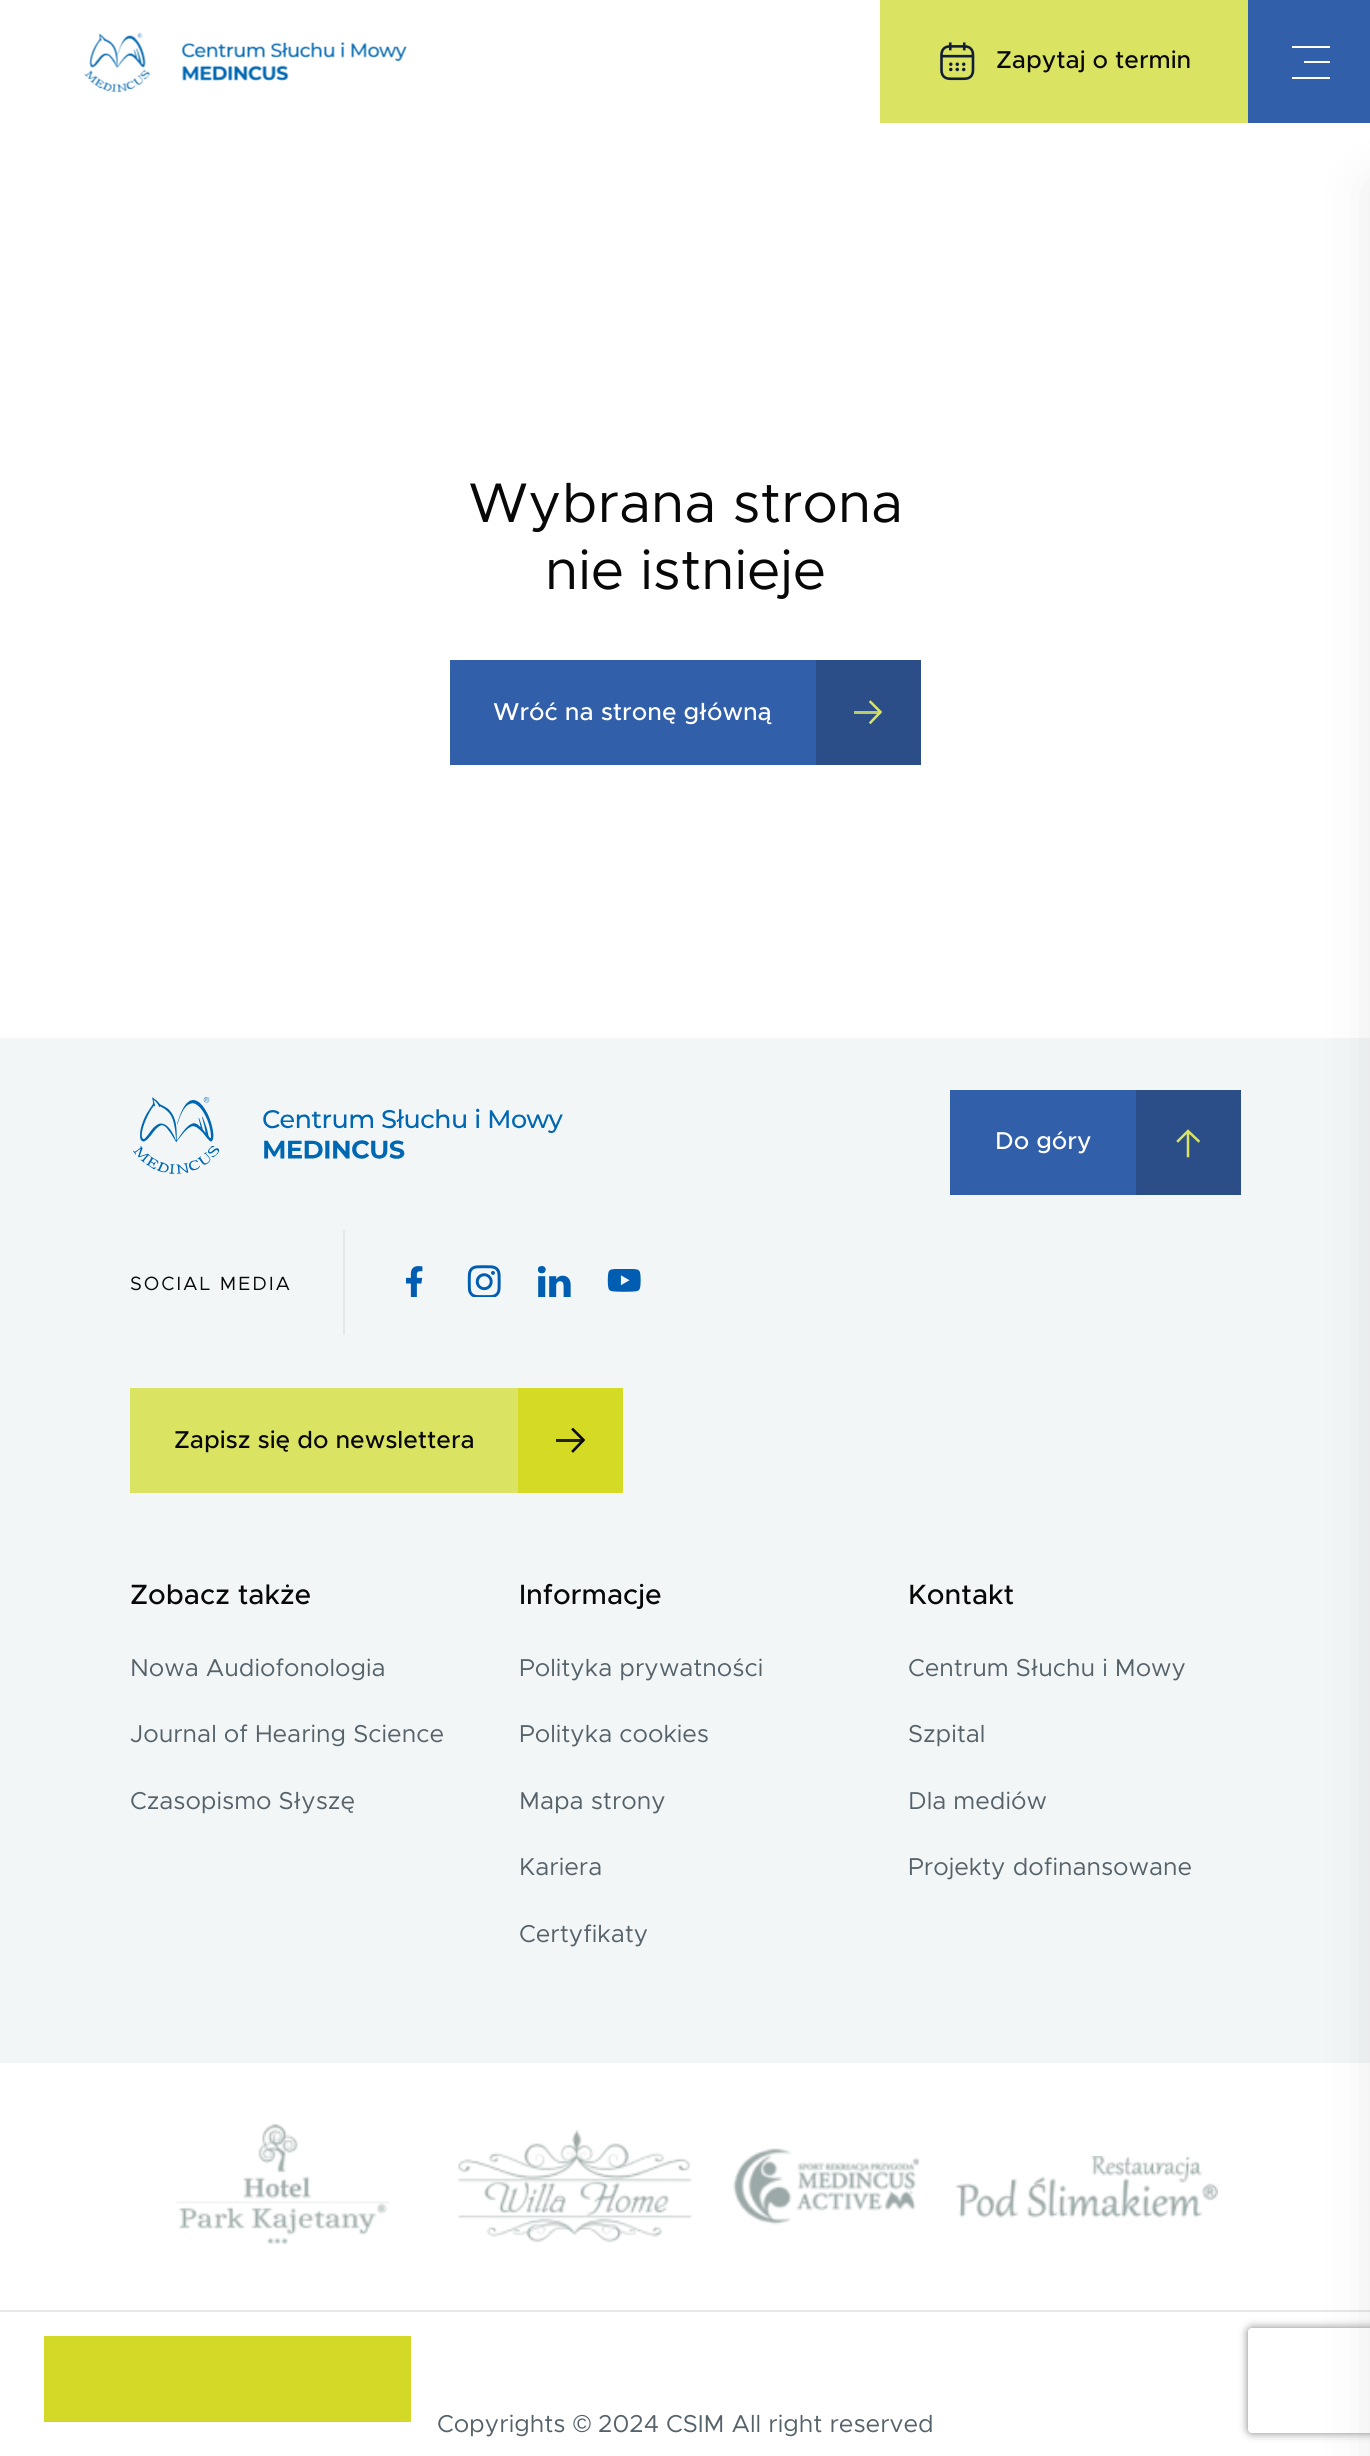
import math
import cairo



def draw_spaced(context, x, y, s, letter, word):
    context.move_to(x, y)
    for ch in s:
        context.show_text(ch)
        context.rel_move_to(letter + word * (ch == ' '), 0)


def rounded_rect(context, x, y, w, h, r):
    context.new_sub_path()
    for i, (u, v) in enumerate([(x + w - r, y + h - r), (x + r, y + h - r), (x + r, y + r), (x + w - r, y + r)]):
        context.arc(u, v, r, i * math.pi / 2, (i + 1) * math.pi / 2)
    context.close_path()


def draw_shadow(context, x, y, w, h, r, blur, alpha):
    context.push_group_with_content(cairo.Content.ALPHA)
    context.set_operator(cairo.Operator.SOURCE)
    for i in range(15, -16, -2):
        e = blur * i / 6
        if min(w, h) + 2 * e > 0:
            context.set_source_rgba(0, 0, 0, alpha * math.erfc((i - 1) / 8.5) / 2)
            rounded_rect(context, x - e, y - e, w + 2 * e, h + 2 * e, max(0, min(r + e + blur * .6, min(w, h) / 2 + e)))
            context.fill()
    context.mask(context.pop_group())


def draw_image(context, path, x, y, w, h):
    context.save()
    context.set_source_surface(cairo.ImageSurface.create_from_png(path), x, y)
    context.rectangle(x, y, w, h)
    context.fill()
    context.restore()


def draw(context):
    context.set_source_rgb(1, 1, 1)
    context.paint()
    draw_image(context, "images/1.png", 84, 32, 323, 60)
    context.set_source_rgb(218 / 255, 227 / 255, 98 / 255)
    context.rectangle(880, 0, 368, 123)
    context.fill()
    draw_image(context, "images/2.png", 940, 42, 35, 39)
    context.set_source_rgb(243 / 255, 246 / 255, 247 / 255)
    context.rectangle(0, 1038, 1370, 1025)
    context.fill()
    context.set_source_rgb(227 / 255, 233 / 255, 233 / 255)
    context.rectangle(0, 2310, 1370, 2)
    context.fill()
    context.set_source_rgb(36 / 255, 37 / 255, 39 / 255)
    draw_shadow(context, 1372, 184, 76, 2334, 0, 26, 0.1)
    context.set_source_rgb(50 / 255, 95 / 255, 170 / 255)
    context.rectangle(1248, 0, 122, 123)
    context.fill()
    context.set_source_rgb(1, 1, 1)
    context.rectangle(1292, 46, 38, 2)
    context.fill()
    context.rectangle(1304, 61, 26, 2)
    context.fill()
    context.rectangle(1292, 77, 38, 2)
    context.fill()
    context.set_source_rgb(50 / 255, 95 / 255, 170 / 255)
    context.rectangle(450, 660, 366, 105)
    context.fill()
    context.set_source_rgb(43 / 255, 77 / 255, 136 / 255)
    context.rectangle(816, 660, 105, 105)
    context.fill()
    context.set_source_rgb(189 / 255, 202 / 255, 104 / 255)
    context.rectangle(854, 711, 27, 3)
    context.fill()
    context.new_path()
    context.move_to(870.5, 702)
    context.line_to(880.5, 712)
    context.line_to(870.5, 722.5)
    context.set_source_rgb(218 / 255, 227 / 255, 98 / 255)
    context.set_line_width(2.5)
    context.set_line_cap(cairo.LineCap.SQUARE)
    context.stroke()
    draw_image(context, "images/3.png", 133, 1097, 430, 77)
    context.set_source_rgb(50 / 255, 95 / 255, 170 / 255)
    context.rectangle(950, 1090, 186, 105)
    context.fill()
    context.set_source_rgb(43 / 255, 77 / 255, 136 / 255)
    context.rectangle(1136, 1090, 105, 105)
    context.fill()
    context.new_path()
    context.move_to(1188, 1132)
    context.line_to(1188, 1156)
    context.move_to(1178, 1141)
    context.line_to(1188, 1131)
    context.line_to(1198.5, 1141)
    context.set_source_rgb(218 / 255, 227 / 255, 98 / 255)
    context.stroke()
    context.set_source_rgb(227 / 255, 233 / 255, 233 / 255)
    context.rectangle(343, 1230, 2, 105)
    context.fill()
    draw_image(context, "images/4.png", 406, 1266, 17, 31)
    draw_image(context, "images/5.png", 467, 1265, 34, 32)
    draw_image(context, "images/6.png", 538, 1266, 33, 31)
    draw_image(context, "images/7.png", 607, 1269, 34, 23)
    context.set_source_rgb(218 / 255, 227 / 255, 98 / 255)
    context.rectangle(130, 1388, 388, 105)
    context.fill()
    context.set_source_rgb(213 / 255, 218 / 255, 37 / 255)
    context.rectangle(518, 1388, 105, 105)
    context.fill()
    context.set_source_rgb(35 / 255, 36 / 255, 13 / 255)
    context.rectangle(556, 1439, 28, 3)
    context.fill()
    context.new_path()
    context.move_to(573, 1429.5)
    context.line_to(583.5, 1440)
    context.line_to(573, 1451)
    context.set_source_rgb(8 / 255, 8 / 255, 9 / 255)
    context.set_line_width(2.6)
    context.stroke()
    draw_image(context, "images/8.png", 176, 2124, 214, 121)
    draw_image(context, "images/9.png", 458, 2129, 234, 114)
    draw_image(context, "images/10.png", 733, 2148, 187, 77)
    draw_image(context, "images/11.png", 955, 2156, 263, 62)
    context.save()
    context.set_fill_rule(cairo.FillRule.EVEN_ODD)
    context.new_path()
    context.move_to(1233, 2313)
    context.line_to(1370, 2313)
    context.line_to(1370, 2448)
    context.line_to(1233, 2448)
    context.close_path()
    context.move_to(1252, 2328)
    context.line_to(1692, 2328)
    context.curve_to(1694, 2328, 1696, 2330, 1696, 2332)
    context.line_to(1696, 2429)
    context.curve_to(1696, 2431, 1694, 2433, 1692, 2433)
    context.line_to(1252, 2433)
    context.curve_to(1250, 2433, 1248, 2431, 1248, 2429)
    context.line_to(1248, 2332)
    context.curve_to(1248, 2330, 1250, 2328, 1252, 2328)
    context.close_path()
    context.clip()
    context.set_source_rgb(128 / 255, 128 / 255, 128 / 255)
    draw_shadow(context, 1248, 2328, 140, 105, 4, 4.5, 1)
    context.restore()
    context.set_source_rgb(212 / 255, 217 / 255, 40 / 255)
    context.rectangle(44, 2336, 367, 86)
    context.fill()
    context.select_font_face("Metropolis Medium")
    context.set_font_size(24.5)
    context.set_source_rgb(8 / 255, 8 / 255, 9 / 255)
    context.move_to(996, 68)
    context.show_text("Zapytaj o termin")
    context.select_font_face("Metropolis")
    context.set_font_size(56)
    context.move_to(468, 522)
    context.show_text("Wybrana strona")
    context.move_to(545, 589)
    context.show_text("nie istnieje")
    context.select_font_face("Metropolis Medium")
    context.set_font_size(24.5)
    context.set_source_rgb(1, 1, 1)
    context.move_to(493, 720)
    context.show_text("Wróć na stronę główną")
    context.move_to(995, 1149)
    context.show_text("Do góry")
    context.select_font_face("Metropolis")
    context.set_font_size(19.25)
    context.set_source_rgb(8 / 255, 8 / 255, 9 / 255)
    draw_spaced(context, 130, 1290, "SOCIAL MEDIA", 2, 0)
    context.select_font_face("Metropolis Medium")
    context.set_font_size(24.5)
    context.move_to(174, 1448)
    context.show_text("Zapisz się do newslettera")
    context.set_font_size(28)
    context.move_to(130, 1604)
    context.show_text("Zobacz także")
    context.select_font_face("Metropolis")
    context.set_font_size(24.5)
    context.set_source_rgb(85 / 255, 98 / 255, 106 / 255)
    context.move_to(130, 1676)
    context.show_text("Nowa Audiofonologia")
    context.move_to(130, 1742)
    context.show_text("Journal of Hearing Science")
    context.move_to(130, 1809)
    context.show_text("Czasopismo Słyszę")
    context.select_font_face("Metropolis Medium")
    context.set_font_size(28)
    context.set_source_rgb(8 / 255, 8 / 255, 9 / 255)
    context.move_to(519, 1604)
    context.show_text("Informacje")
    context.select_font_face("Metropolis")
    context.set_font_size(24.5)
    context.set_source_rgb(85 / 255, 98 / 255, 106 / 255)
    context.move_to(519, 1676)
    context.show_text("Polityka prywatności")
    context.move_to(519, 1742)
    context.show_text("Polityka cookies")
    context.move_to(519, 1809)
    context.show_text("Mapa strony")
    context.move_to(519, 1875)
    context.show_text("Kariera")
    context.move_to(519, 1942)
    context.show_text("Certyfikaty")
    context.select_font_face("Metropolis Medium")
    context.set_font_size(28)
    context.set_source_rgb(8 / 255, 8 / 255, 9 / 255)
    context.move_to(908, 1604)
    context.show_text("Kontakt")
    context.select_font_face("Metropolis")
    context.set_font_size(24.5)
    context.set_source_rgb(85 / 255, 98 / 255, 106 / 255)
    context.move_to(908, 1676)
    context.show_text("Centrum Słuchu i Mowy")
    context.move_to(908, 1742)
    context.show_text("Szpital")
    context.move_to(908, 1809)
    context.show_text("Dla mediów")
    context.move_to(908, 1875)
    context.show_text("Projekty dofinansowane")
    context.move_to(437, 2432)
    context.show_text("Copyrights")
    context.select_font_face("Liberation Sans")
    context.move_to(573, 2432)
    context.show_text("©")
    context.select_font_face("Metropolis")
    context.move_to(598, 2432)
    context.show_text("2024 CSIM All right reserved")


surface = cairo.ImageSurface(cairo.Format.RGB24, 1370, 2456)
context = cairo.Context(surface)
options = cairo.FontOptions()
options.set_hint_metrics(cairo.HintMetrics.OFF)
options.set_hint_style(cairo.HintStyle.NONE)
context.set_font_options(options)
context.set_miter_limit(4)
draw(context)
surface.write_to_png("out.png")
